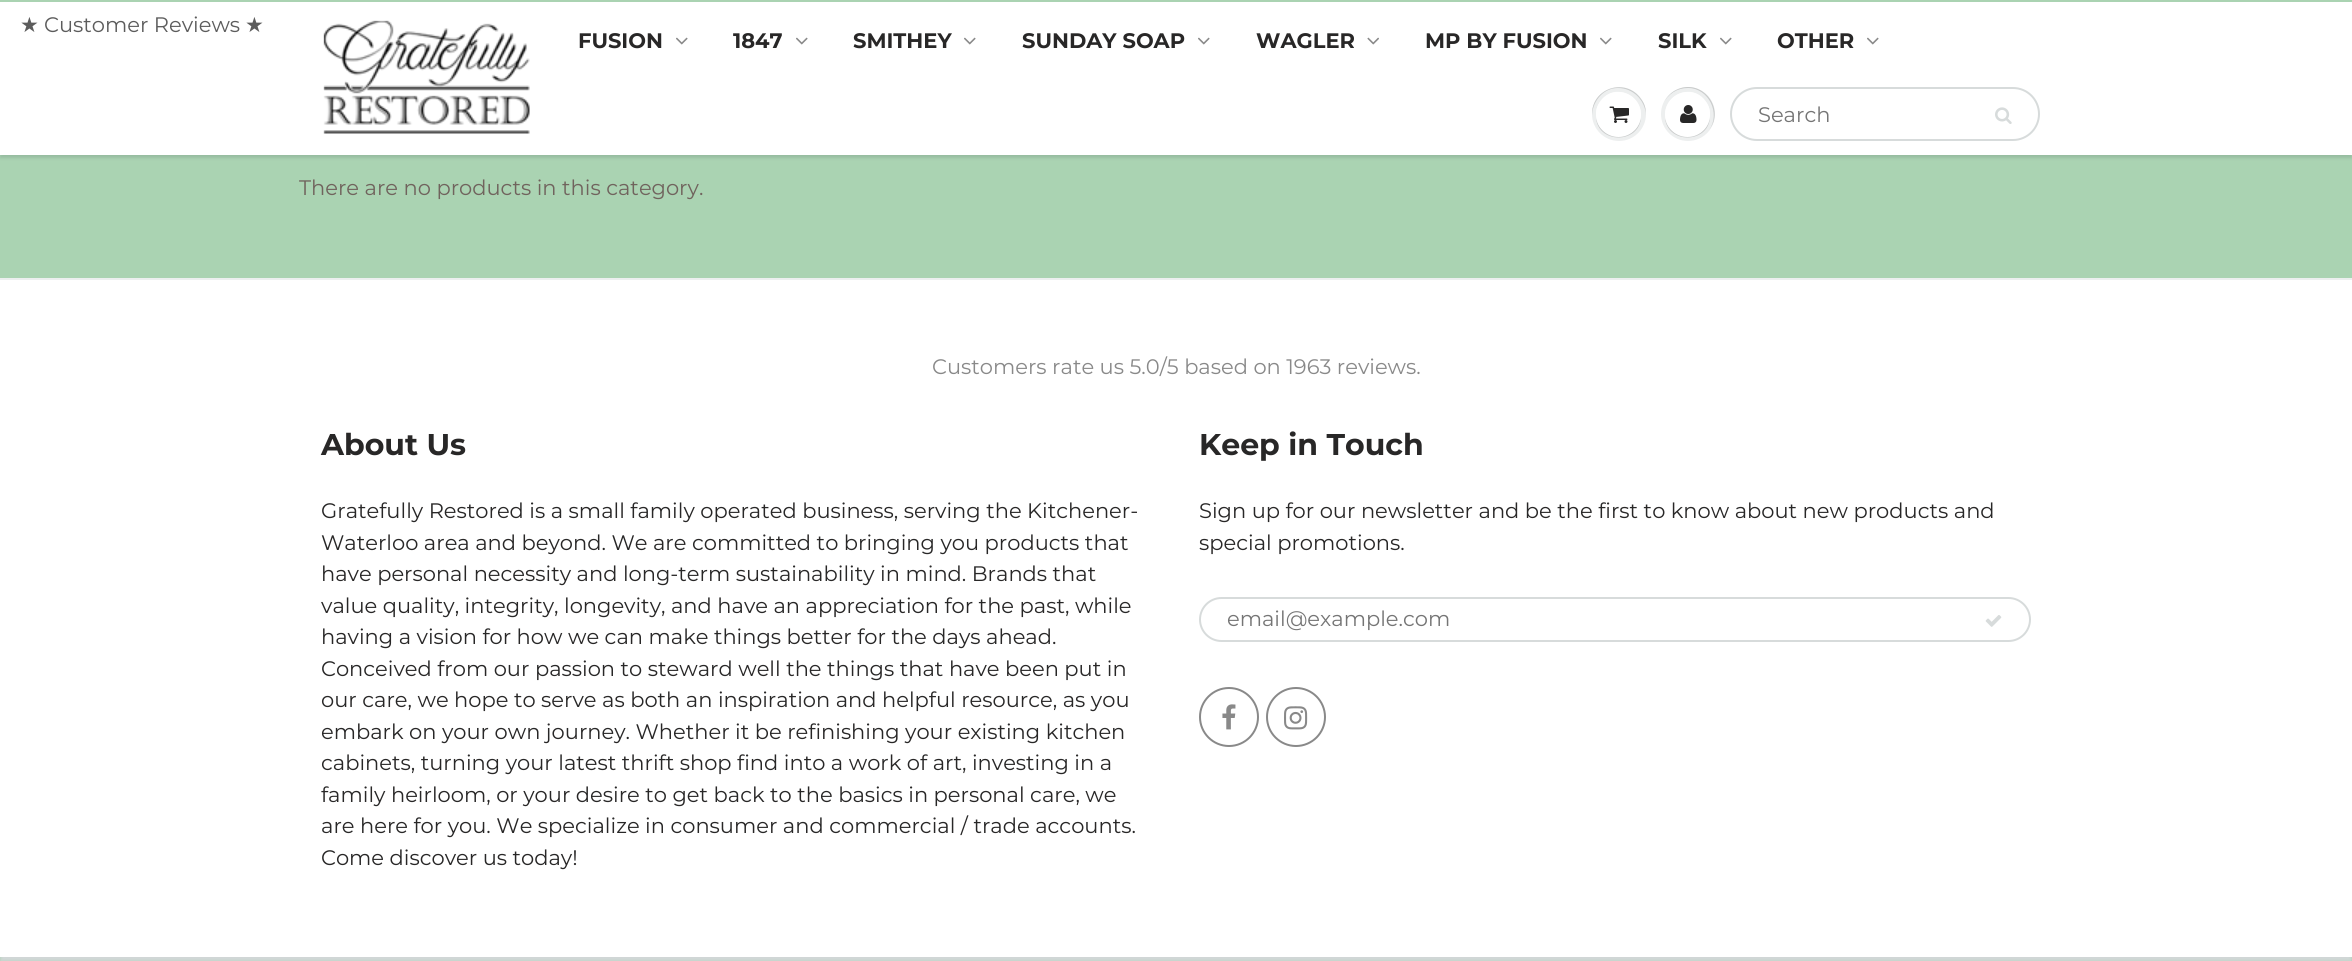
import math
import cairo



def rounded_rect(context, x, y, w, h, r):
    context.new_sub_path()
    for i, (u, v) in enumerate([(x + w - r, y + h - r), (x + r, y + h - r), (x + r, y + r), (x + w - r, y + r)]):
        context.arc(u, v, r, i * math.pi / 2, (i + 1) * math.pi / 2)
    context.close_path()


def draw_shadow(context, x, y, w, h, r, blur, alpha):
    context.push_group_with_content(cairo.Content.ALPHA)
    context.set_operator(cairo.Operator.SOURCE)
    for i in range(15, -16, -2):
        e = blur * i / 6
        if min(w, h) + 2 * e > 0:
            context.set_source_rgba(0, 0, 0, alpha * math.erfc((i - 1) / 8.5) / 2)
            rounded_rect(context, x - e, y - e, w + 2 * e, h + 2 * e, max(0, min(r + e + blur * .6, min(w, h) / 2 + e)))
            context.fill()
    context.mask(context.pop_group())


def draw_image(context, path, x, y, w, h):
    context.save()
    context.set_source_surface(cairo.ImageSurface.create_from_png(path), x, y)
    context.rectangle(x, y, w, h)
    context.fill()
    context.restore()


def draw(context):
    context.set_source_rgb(1, 1, 1)
    context.paint()
    context.set_source_rgb(170 / 255, 211 / 255, 178 / 255)
    context.rectangle(0, 155, 2352, 123)
    context.fill()
    context.set_source_rgb(11 / 255, 25 / 255, 28 / 255)
    draw_shadow(context, 0, 3, 2352, 155, 0, 1.5, 0.12)
    context.set_source_rgb(1, 1, 1)
    context.rectangle(0, 2, 2352, 153)
    context.fill()
    context.set_source_rgb(170 / 255, 211 / 255, 178 / 255)
    context.rectangle(0, 0, 2352, 2)
    context.fill()
    draw_image(context, "images/1.png", 323, 20, 207, 114)
    draw_image(context, "images/2.png", 676, 37, 12, 8)
    draw_image(context, "images/2.png", 796, 37, 12, 8)
    draw_image(context, "images/2.png", 964, 37, 12, 8)
    draw_image(context, "images/2.png", 1198, 37, 12, 8)
    draw_image(context, "images/3.png", 1367, 37, 12, 8)
    draw_image(context, "images/2.png", 1600, 37, 12, 8)
    draw_image(context, "images/2.png", 1720, 37, 12, 8)
    draw_image(context, "images/2.png", 1867, 37, 12, 8)
    context.set_source_rgb(237 / 255, 239 / 255, 239 / 255)
    context.arc(1619, 114, 27, 0, 2 * math.pi)
    context.fill()
    context.set_source_rgb(201 / 255, 203 / 255, 203 / 255)
    context.new_path()
    context.move_to(1618, 88)
    context.curve_to(1633, 88, 1645, 100, 1646, 115)
    context.curve_to(1646, 109, 1645, 104, 1641, 99)
    context.curve_to(1626, 77, 1591, 88, 1592, 115)
    context.curve_to(1593, 100, 1604, 88, 1618, 88)
    context.close_path()
    context.move_to(1596, 115)
    context.curve_to(1595, 145, 1642, 145, 1641, 115)
    context.curve_to(1640, 143, 1597, 143, 1596, 115)
    context.close_path()
    context.fill()
    context.set_source_rgb(1, 1, 1)
    context.arc(1618.5, 114.5, 22.5, 0, 2 * math.pi)
    context.fill()
    context.new_path()
    context.move_to(1618, 93)
    context.curve_to(1636, 93, 1643, 110, 1639, 123)
    context.curve_to(1649, 99, 1615, 79, 1600, 102)
    context.curve_to(1596, 107, 1595, 114, 1597, 120)
    context.curve_to(1595, 107, 1602, 93, 1618, 93)
    context.close_path()
    context.fill()
    draw_image(context, "images/4.png", 1609, 106, 20, 17)
    context.set_source_rgb(237 / 255, 239 / 255, 239 / 255)
    context.arc(1688, 114, 27, 0, 2 * math.pi)
    context.fill()
    context.set_source_rgb(201 / 255, 203 / 255, 203 / 255)
    context.new_path()
    context.move_to(1688, 88)
    context.curve_to(1709, 88, 1721, 114, 1709, 130)
    context.curve_to(1726, 109, 1702, 77, 1676, 90)
    context.curve_to(1670, 93, 1666, 98, 1663, 104)
    context.curve_to(1668, 94, 1677, 88, 1688, 88)
    context.close_path()
    context.fill()
    context.new_path()
    context.move_to(1665, 115)
    context.curve_to(1664, 145, 1711, 145, 1710, 115)
    context.curve_to(1709, 143, 1666, 143, 1665, 115)
    context.close_path()
    context.fill()
    context.set_source_rgb(1, 1, 1)
    context.arc(1687.5, 114.5, 22.5, 0, 2 * math.pi)
    context.fill()
    context.new_path()
    context.move_to(1688, 93)
    context.curve_to(1704, 93, 1711, 107, 1709, 120)
    context.curve_to(1711, 114, 1710, 107, 1706, 102)
    context.curve_to(1691, 79, 1657, 99, 1667, 123)
    context.curve_to(1663, 110, 1670, 93, 1688, 93)
    context.close_path()
    context.fill()
    draw_image(context, "images/5.png", 1680, 105, 17, 18)
    rounded_rect(context, 1731, 88, 308, 52, 26)
    context.set_source_rgb(215 / 255, 219 / 255, 219 / 255)
    context.stroke()
    draw_image(context, "images/6.png", 1995, 107, 17, 17)
    context.set_source_rgb(170 / 255, 211 / 255, 178 / 255)
    context.rectangle(0, 957, 2352, 4)
    context.fill()
    context.save()
    context.rectangle(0, 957, 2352, 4)
    context.clip()
    context.set_source_rgb(209 / 255, 215 / 255, 215 / 255)
    draw_shadow(context, 0, 282, 2352, 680, 0, 2, 1)
    context.restore()
    context.set_source_rgb(236 / 255, 239 / 255, 239 / 255)
    context.rectangle(0, 278, 2352, 2)
    context.fill()
    rounded_rect(context, 1200, 598, 830, 43, 21.5)
    context.set_source_rgb(215 / 255, 219 / 255, 219 / 255)
    context.stroke()
    draw_image(context, "images/7.png", 1985, 615, 17, 12)
    context.arc(1229, 717, 29, 0, 2 * math.pi)
    context.set_source_rgb(137 / 255, 137 / 255, 137 / 255)
    context.stroke()
    draw_image(context, "images/8.png", 1222, 704, 14, 26)
    context.arc(1296, 717, 29, 0, 2 * math.pi)
    context.stroke()
    draw_image(context, "images/9.png", 1284, 706, 24, 24)
    context.select_font_face("DejaVu Sans")
    context.set_font_size(21)
    context.set_source_rgb(92 / 255, 92 / 255, 92 / 255)
    context.move_to(20, 32)
    context.show_text("★")
    context.select_font_face("Montserrat")
    context.move_to(44, 32)
    context.show_text("Customer Reviews")
    context.select_font_face("DejaVu Sans")
    context.move_to(245, 32)
    context.show_text("★")
    context.select_font_face("Montserrat", cairo.FontSlant.NORMAL, cairo.FontWeight.BOLD)
    context.set_source_rgb(40 / 255, 39 / 255, 39 / 255)
    context.move_to(578, 48)
    context.show_text("FUSION")
    context.move_to(733, 48)
    context.show_text("1847")
    context.move_to(853, 48)
    context.show_text("SMITHEY")
    context.move_to(1022, 48)
    context.show_text("SUNDAY SOAP")
    context.move_to(1256, 48)
    context.show_text("WAGLER")
    context.move_to(1425, 48)
    context.show_text("MP BY FUSION")
    context.move_to(1658, 48)
    context.show_text("SILK")
    context.move_to(1777, 48)
    context.show_text("OTHER")
    context.select_font_face("Montserrat")
    context.set_source_rgb(117 / 255, 117 / 255, 117 / 255)
    context.move_to(1758, 122)
    context.show_text("Search")
    context.set_source_rgb(112 / 255, 99 / 255, 93 / 255)
    context.move_to(299, 195)
    context.show_text("There are no products in this category.")
    context.set_source_rgb(137 / 255, 137 / 255, 137 / 255)
    context.move_to(932, 374)
    context.show_text("Customers rate us 5.0/5 based on 1963 reviews.")
    context.select_font_face("Montserrat", cairo.FontSlant.NORMAL, cairo.FontWeight.BOLD)
    context.set_font_size(30)
    context.set_source_rgb(40 / 255, 39 / 255, 39 / 255)
    context.move_to(321, 455)
    context.show_text("About Us")
    context.select_font_face("Montserrat")
    context.set_font_size(21)
    context.move_to(321, 518)
    context.show_text("Gratefully Restored is a small family operated business, serving the Kitchener-")
    context.move_to(321, 550)
    context.show_text("Waterloo area and beyond. We are committed to bringing you products that")
    context.move_to(321, 581)
    context.show_text("have personal necessity and long-term sustainability in mind. Brands that")
    context.move_to(321, 613)
    context.show_text("value quality, integrity, longevity, and have an appreciation for the past, while")
    context.move_to(321, 644)
    context.show_text("having a vision for how we can make things better for the days ahead.")
    context.move_to(321, 676)
    context.show_text("Conceived from our passion to steward well the things that have been put in")
    context.move_to(321, 707)
    context.show_text("our care, we hope to serve as both an inspiration and helpful resource, as you")
    context.move_to(321, 739)
    context.show_text("embark on your own journey. Whether it be refinishing your existing kitchen")
    context.move_to(321, 770)
    context.show_text("cabinets, turning your latest thrift shop find into a work of art, investing in a")
    context.move_to(321, 802)
    context.show_text("family heirloom, or your desire to get back to the basics in personal care, we")
    context.move_to(321, 833)
    context.show_text("are here for you. We specialize in consumer and commercial / trade accounts.")
    context.move_to(321, 865)
    context.show_text("Come discover us today!")
    context.select_font_face("Montserrat", cairo.FontSlant.NORMAL, cairo.FontWeight.BOLD)
    context.set_font_size(30)
    context.move_to(1199, 455)
    context.show_text("Keep in Touch")
    context.select_font_face("Montserrat")
    context.set_font_size(21)
    context.move_to(1199, 518)
    context.show_text("Sign up for our newsletter and be the first to know about new products and")
    context.move_to(1199, 550)
    context.show_text("special promotions.")
    context.set_source_rgb(117 / 255, 117 / 255, 117 / 255)
    context.move_to(1227, 626)
    context.show_text("email@example.com")


surface = cairo.ImageSurface(cairo.Format.RGB24, 2352, 961)
context = cairo.Context(surface)
options = cairo.FontOptions()
options.set_hint_metrics(cairo.HintMetrics.OFF)
options.set_hint_style(cairo.HintStyle.NONE)
context.set_font_options(options)
context.set_miter_limit(4)
draw(context)
surface.write_to_png("out.png")
